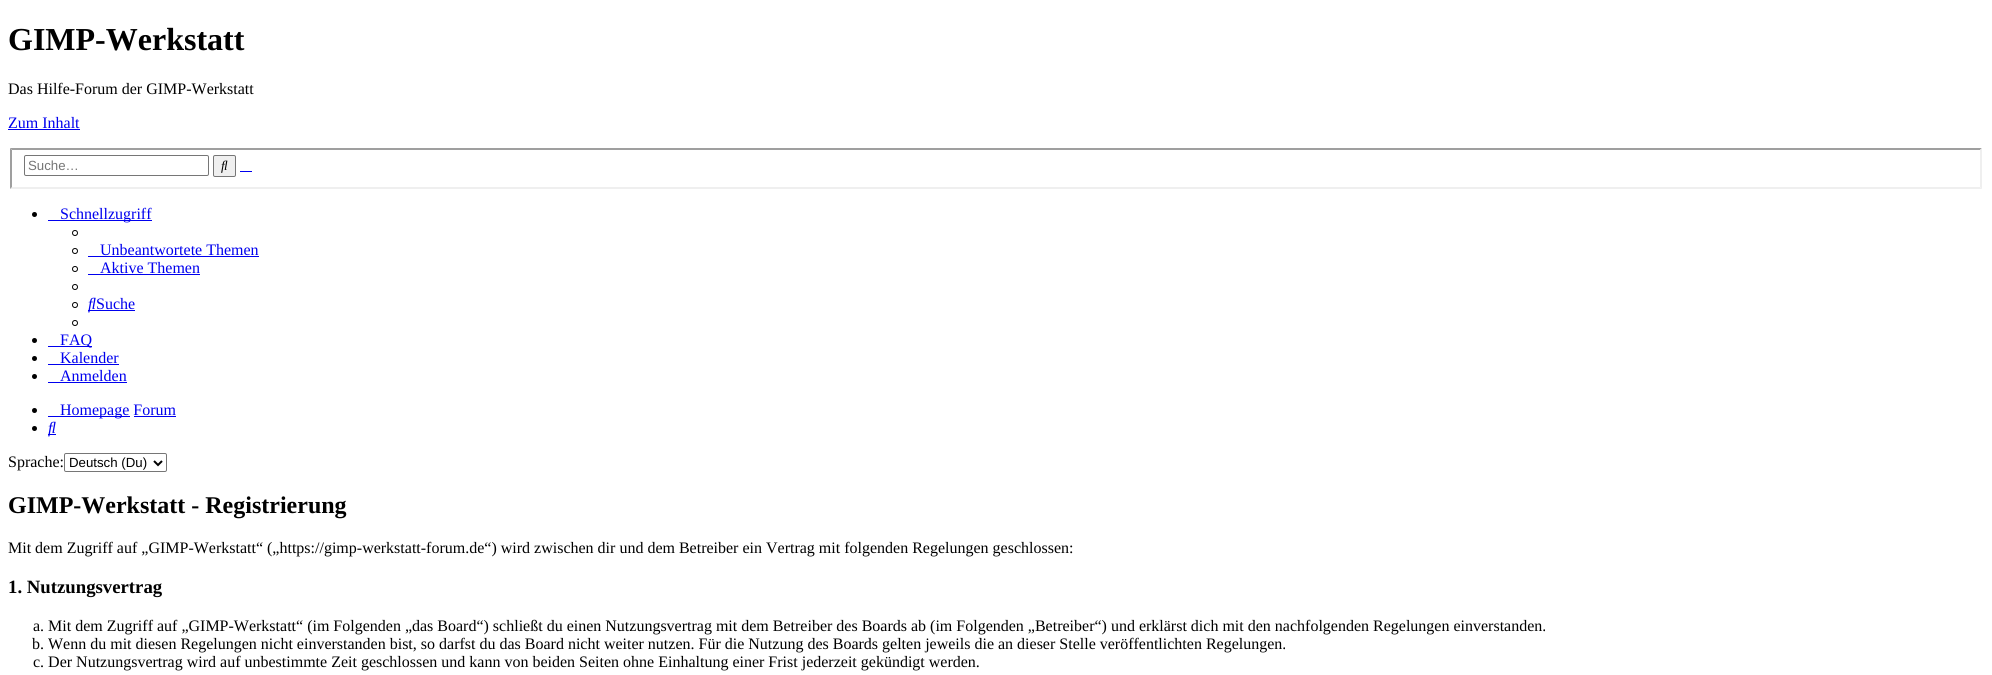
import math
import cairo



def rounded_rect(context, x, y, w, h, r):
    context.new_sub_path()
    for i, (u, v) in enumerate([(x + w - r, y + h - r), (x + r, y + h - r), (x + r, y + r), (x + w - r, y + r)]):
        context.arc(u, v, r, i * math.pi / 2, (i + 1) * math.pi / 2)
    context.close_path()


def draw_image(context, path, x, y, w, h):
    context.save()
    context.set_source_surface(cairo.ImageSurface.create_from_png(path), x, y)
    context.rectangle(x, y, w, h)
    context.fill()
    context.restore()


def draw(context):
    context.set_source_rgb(1, 1, 1)
    context.paint()
    context.set_source_rgb(0, 0, 238 / 255)
    context.rectangle(8, 129, 72, 1)
    context.fill()
    context.set_source_rgb(159 / 255, 159 / 255, 159 / 255)
    context.new_path()
    context.move_to(10, 148)
    context.line_to(1982, 148)
    context.line_to(1980, 150)
    context.line_to(12, 150)
    context.close_path()
    context.fill()
    context.set_source_rgb(239 / 255, 239 / 255, 239 / 255)
    context.new_path()
    context.move_to(1982, 148)
    context.line_to(1982, 189)
    context.line_to(1980, 187)
    context.line_to(1980, 150)
    context.close_path()
    context.fill()
    context.new_path()
    context.move_to(1982, 189)
    context.line_to(10, 189)
    context.line_to(12, 187)
    context.line_to(1980, 187)
    context.close_path()
    context.fill()
    context.set_source_rgb(159 / 255, 159 / 255, 159 / 255)
    context.new_path()
    context.move_to(10, 189)
    context.line_to(10, 148)
    context.line_to(12, 150)
    context.line_to(12, 187)
    context.close_path()
    context.fill()
    rounded_rect(context, 24.5, 155.5, 184, 20, 1.5)
    context.set_source_rgb(118 / 255, 118 / 255, 118 / 255)
    context.set_line_width(1)
    context.stroke()
    context.set_source_rgb(239 / 255, 239 / 255, 239 / 255)
    rounded_rect(context, 213.5, 155.5, 22, 21, 1.5)
    context.fill_preserve()
    context.set_source_rgb(118 / 255, 118 / 255, 118 / 255)
    context.stroke()
    draw_image(context, "images/1.png", 221, 160, 7, 13)
    context.set_source_rgb(0, 0, 238 / 255)
    context.rectangle(240, 171, 12, 1)
    context.fill()
    context.set_source_rgb(0, 0, 0)
    context.arc(34.5, 214.5, 2.5, 0, 2 * math.pi)
    context.fill()
    context.set_source_rgb(0, 0, 238 / 255)
    context.rectangle(48, 220, 104, 1)
    context.fill()
    context.arc(75, 233, 2.5, 0, 2 * math.pi)
    context.set_source_rgb(0, 0, 0)
    context.stroke()
    context.arc(75, 251, 2.5, 0, 2 * math.pi)
    context.stroke()
    context.set_source_rgb(0, 0, 238 / 255)
    context.rectangle(88, 256, 171, 1)
    context.fill()
    context.arc(75, 269, 2.5, 0, 2 * math.pi)
    context.set_source_rgb(0, 0, 0)
    context.stroke()
    context.set_source_rgb(0, 0, 238 / 255)
    context.rectangle(88, 274, 112, 1)
    context.fill()
    context.arc(75, 287, 2.5, 0, 2 * math.pi)
    context.set_source_rgb(0, 0, 0)
    context.stroke()
    context.arc(75, 305, 2.5, 0, 2 * math.pi)
    context.stroke()
    context.set_source_rgb(0, 0, 238 / 255)
    context.rectangle(88, 310, 47, 1)
    context.fill()
    draw_image(context, "images/2.png", 88, 297, 8, 16)
    context.arc(75, 323, 2.5, 0, 2 * math.pi)
    context.set_source_rgb(0, 0, 0)
    context.stroke()
    context.arc(34.5, 340.5, 2.5, 0, 2 * math.pi)
    context.fill()
    context.set_source_rgb(0, 0, 238 / 255)
    context.rectangle(48, 346, 44, 1)
    context.fill()
    context.set_source_rgb(0, 0, 0)
    context.arc(34.5, 358.5, 2.5, 0, 2 * math.pi)
    context.fill()
    context.set_source_rgb(0, 0, 238 / 255)
    context.rectangle(48, 364, 71, 1)
    context.fill()
    context.set_source_rgb(0, 0, 0)
    context.arc(34.5, 376.5, 2.5, 0, 2 * math.pi)
    context.fill()
    context.set_source_rgb(0, 0, 238 / 255)
    context.rectangle(48, 382, 79, 1)
    context.fill()
    context.set_source_rgb(0, 0, 0)
    context.arc(34.5, 410.5, 2.5, 0, 2 * math.pi)
    context.fill()
    context.set_source_rgb(0, 0, 238 / 255)
    context.rectangle(48, 416, 82, 1)
    context.fill()
    context.rectangle(134, 416, 42, 1)
    context.fill()
    context.set_source_rgb(0, 0, 0)
    context.arc(34.5, 428.5, 2.5, 0, 2 * math.pi)
    context.fill()
    context.set_source_rgb(0, 0, 238 / 255)
    context.rectangle(48, 434, 8, 1)
    context.fill()
    draw_image(context, "images/2.png", 48, 421, 8, 16)
    rounded_rect(context, 64.5, 453.5, 102, 18, 1.5)
    context.set_source_rgb(118 / 255, 118 / 255, 118 / 255)
    context.stroke()
    context.new_path()
    context.move_to(154, 461)
    context.line_to(158, 465)
    context.line_to(162, 461)
    context.set_source_rgb(0, 0, 0)
    context.set_line_width(2)
    context.stroke()
    context.select_font_face("Liberation Serif", cairo.FontSlant.NORMAL, cairo.FontWeight.BOLD)
    context.set_font_size(32)
    context.move_to(8, 50)
    context.show_text("GIMP-Werkstatt")
    context.select_font_face("Liberation Serif")
    context.set_font_size(16)
    context.move_to(8, 94)
    context.show_text("Das Hilfe-Forum der GIMP-Werkstatt")
    context.set_source_rgb(0, 0, 238 / 255)
    context.move_to(8, 128)
    context.show_text("Zum Inhalt")
    context.select_font_face("Liberation Sans")
    context.set_font_size(13.25)
    context.set_source_rgb(117 / 255, 117 / 255, 117 / 255)
    context.move_to(28, 170)
    context.show_text("Suche…")
    context.select_font_face("Liberation Serif")
    context.set_font_size(16)
    context.set_source_rgb(0, 0, 238 / 255)
    context.move_to(60, 219)
    context.show_text("Schnellzugriff")
    context.move_to(100, 255)
    context.show_text("Unbeantwortete Themen")
    context.move_to(100, 273)
    context.show_text("Aktive Themen")
    context.move_to(96, 309)
    context.show_text("Suche")
    context.move_to(60, 345)
    context.show_text("FAQ")
    context.move_to(60, 363)
    context.show_text("Kalender")
    context.move_to(60, 381)
    context.show_text("Anmelden")
    context.move_to(60, 415)
    context.show_text("Homepage Forum")
    context.set_source_rgb(0, 0, 0)
    context.move_to(8, 467)
    context.show_text("Sprache:")
    context.select_font_face("Liberation Sans")
    context.set_font_size(13.25)
    context.move_to(69, 467)
    context.show_text("Deutsch (Du)")
    context.select_font_face("Liberation Serif", cairo.FontSlant.NORMAL, cairo.FontWeight.BOLD)
    context.set_font_size(24)
    context.move_to(8, 513)
    context.show_text("GIMP-Werkstatt - Registrierung")
    context.select_font_face("Liberation Serif")
    context.set_font_size(16)
    context.move_to(8, 553)
    context.show_text("Mit dem Zugriff auf „GIMP-Werkstatt“ („https://gimp-werkstatt-forum.de“) wird zwischen dir und dem Betreiber ein Vertrag mit folgenden Regelungen geschlossen:")
    context.select_font_face("Liberation Serif", cairo.FontSlant.NORMAL, cairo.FontWeight.BOLD)
    context.set_font_size(18.75)
    context.move_to(8, 593)
    context.show_text("1. Nutzungsvertrag")
    context.select_font_face("Liberation Serif")
    context.set_font_size(16)
    context.move_to(33, 631)
    context.show_text("a. Mit dem Zugriff auf „GIMP-Werkstatt“ (im Folgenden „das Board“) schließt du einen Nutzungsvertrag mit dem Betreiber des Boards ab (im Folgenden „Betreiber“) und erklärst dich mit den nachfolgenden Regelungen einverstanden.")
    context.move_to(32, 649)
    context.show_text("b. Wenn du mit diesen Regelungen nicht einverstanden bist, so darfst du das Board nicht weiter nutzen. Für die Nutzung des Boards gelten jeweils die an dieser Stelle veröffentlichten Regelungen.")
    context.move_to(33, 667)
    context.show_text("c. Der Nutzungsvertrag wird auf unbestimmte Zeit geschlossen und kann von beiden Seiten ohne Einhaltung einer Frist jederzeit gekündigt werden.")


surface = cairo.ImageSurface(cairo.Format.RGB24, 1992, 675)
context = cairo.Context(surface)
options = cairo.FontOptions()
options.set_hint_metrics(cairo.HintMetrics.OFF)
options.set_hint_style(cairo.HintStyle.NONE)
context.set_font_options(options)
context.set_miter_limit(4)
draw(context)
surface.write_to_png("out.png")
